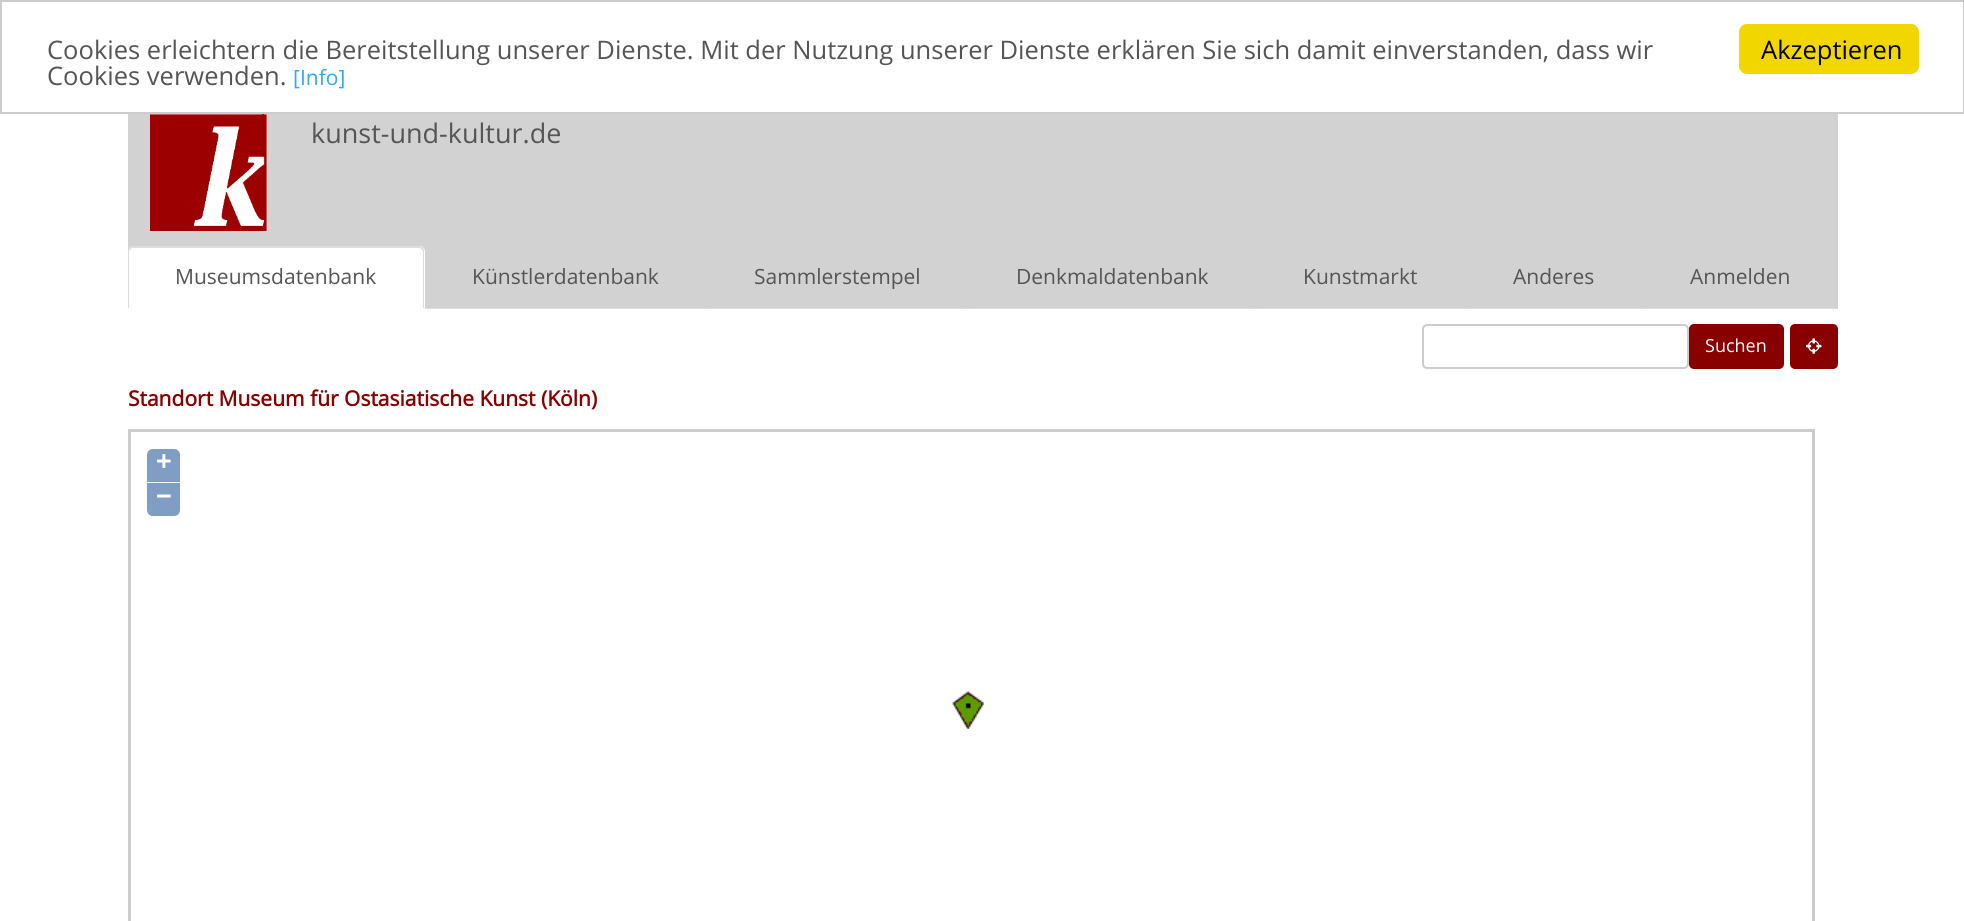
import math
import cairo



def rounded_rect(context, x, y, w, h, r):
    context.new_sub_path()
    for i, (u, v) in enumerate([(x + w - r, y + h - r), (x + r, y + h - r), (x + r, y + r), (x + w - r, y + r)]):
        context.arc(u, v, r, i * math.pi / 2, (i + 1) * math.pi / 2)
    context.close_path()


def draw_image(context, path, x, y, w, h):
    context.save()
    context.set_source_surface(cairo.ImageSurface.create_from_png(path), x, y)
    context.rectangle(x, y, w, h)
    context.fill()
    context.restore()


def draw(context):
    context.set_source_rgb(1, 1, 1)
    context.paint()
    context.rectangle(1, 1, 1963, 112)
    context.set_source_rgb(204 / 255, 204 / 255, 204 / 255)
    context.stroke()
    context.set_source_rgb(241 / 255, 214 / 255, 0)
    rounded_rect(context, 1739, 24, 180, 50, 8)
    context.fill()
    context.set_source_rgb(210 / 255, 210 / 255, 210 / 255)
    context.rectangle(128, 114, 1710, 195)
    context.fill()
    draw_image(context, "images/1.png", 150, 114, 117, 117)
    context.set_source_rgb(1, 1, 1)
    context.new_path()
    context.move_to(134, 246)
    context.line_to(419, 246)
    context.curve_to(422.5, 246, 425, 248.5, 425, 252)
    context.line_to(425, 309)
    context.line_to(128, 309)
    context.line_to(128, 252)
    context.curve_to(128, 248.5, 130.5, 246, 134, 246)
    context.close_path()
    context.fill()
    context.set_source_rgb(221 / 255, 221 / 255, 221 / 255)
    context.new_path()
    context.move_to(134, 246)
    context.curve_to(132, 246, 130, 247, 129, 248)
    context.line_to(131, 249)
    context.curve_to(131, 248, 133, 248, 134, 248)
    context.line_to(418, 248)
    context.curve_to(419, 248, 421, 248, 421, 249)
    context.line_to(423, 248)
    context.curve_to(422, 247, 420, 246, 418, 246)
    context.close_path()
    context.fill()
    context.new_path()
    context.move_to(423, 248)
    context.curve_to(424, 249, 424, 251, 424, 252)
    context.line_to(424, 308)
    context.line_to(423, 308)
    context.line_to(423, 251)
    context.line_to(421, 249)
    context.close_path()
    context.fill()
    context.new_path()
    context.move_to(129, 248)
    context.curve_to(128, 249, 128, 251, 128, 252)
    context.line_to(128, 308)
    context.line_to(129, 308)
    context.line_to(129, 251)
    context.line_to(131, 249)
    context.close_path()
    context.fill()
    context.new_path()
    context.move_to(424, 309)
    context.line_to(706, 309)
    context.line_to(706, 308)
    context.line_to(705, 308)
    context.line_to(426, 308)
    context.close_path()
    context.fill()
    context.new_path()
    context.move_to(968, 309)
    context.line_to(966, 308)
    context.line_to(708, 308)
    context.line_to(706, 309)
    context.close_path()
    context.fill()
    context.new_path()
    context.move_to(1256, 309)
    context.line_to(1254, 308)
    context.line_to(969, 308)
    context.line_to(968, 309)
    context.close_path()
    context.fill()
    context.new_path()
    context.move_to(1466, 309)
    context.line_to(1464, 308)
    context.line_to(1257, 308)
    context.line_to(1256, 309)
    context.close_path()
    context.fill()
    context.new_path()
    context.move_to(1466, 309)
    context.line_to(1642, 309)
    context.line_to(1642, 308)
    context.line_to(1641, 308)
    context.line_to(1467, 308)
    context.close_path()
    context.fill()
    context.new_path()
    context.move_to(1838, 309)
    context.line_to(1836, 308)
    context.line_to(1644, 308)
    context.line_to(1642, 309)
    context.close_path()
    context.fill()
    rounded_rect(context, 1423, 325, 265, 43, 4)
    context.set_source_rgb(204 / 255, 204 / 255, 204 / 255)
    context.stroke()
    context.set_source_rgb(136 / 255, 0, 0)
    rounded_rect(context, 1689, 324, 95, 45, 5)
    context.fill()
    rounded_rect(context, 1790, 324, 48, 45, 5)
    context.fill()
    draw_image(context, "images/2.png", 1806, 338, 16, 16)
    context.rectangle(129.5, 430.5, 1684, 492)
    context.set_source_rgb(204 / 255, 204 / 255, 204 / 255)
    context.set_line_width(3)
    context.stroke()
    context.set_source_rgb(128 / 255, 158 / 255, 196 / 255)
    context.new_path()
    context.move_to(153, 449)
    context.line_to(174, 449)
    context.curve_to(177.5, 449, 180, 451.5, 180, 455)
    context.line_to(180, 482)
    context.line_to(147, 482)
    context.line_to(147, 455)
    context.curve_to(147, 451.5, 149.5, 449, 153, 449)
    context.close_path()
    context.fill()
    context.new_path()
    context.move_to(147, 483)
    context.line_to(180, 483)
    context.line_to(180, 510)
    context.curve_to(180, 513.5, 177.5, 516, 174, 516)
    context.line_to(153, 516)
    context.curve_to(149.5, 516, 147, 513.5, 147, 510)
    context.close_path()
    context.fill()
    draw_image(context, "images/3.png", 952, 691, 32, 38)
    context.select_font_face("Open Sans")
    context.set_font_size(25.5)
    context.set_source_rgb(85 / 255, 85 / 255, 85 / 255)
    context.move_to(47, 59)
    context.show_text("Cookies erleichtern die Bereitstellung unserer Dienste. Mit der Nutzung unserer Dienste erklären Sie sich damit einverstanden, dass wir")
    context.move_to(47, 85)
    context.show_text("Cookies verwenden.")
    context.set_font_size(21)
    context.set_source_rgb(49 / 255, 168 / 255, 240 / 255)
    context.move_to(293, 85)
    context.show_text("[Info]")
    context.set_font_size(25.5)
    context.set_source_rgb(0, 0, 0)
    context.move_to(1761, 59)
    context.show_text("Akzeptieren")
    context.set_font_size(27)
    context.set_source_rgb(85 / 255, 85 / 255, 85 / 255)
    context.move_to(311, 143)
    context.show_text("kunst-und-kultur.de")
    context.set_font_size(21)
    context.move_to(175, 284)
    context.show_text("Museumsdatenbank")
    context.move_to(472, 284)
    context.show_text("Künstlerdatenbank")
    context.move_to(754, 284)
    context.show_text("Sammlerstempel")
    context.move_to(1016, 284)
    context.show_text("Denkmaldatenbank")
    context.move_to(1303, 284)
    context.show_text("Kunstmarkt")
    context.move_to(1513, 284)
    context.show_text("Anderes")
    context.move_to(1690, 284)
    context.show_text("Anmelden")
    context.set_font_size(18)
    context.set_source_rgb(1, 1, 1)
    context.move_to(1705, 352)
    context.show_text("Suchen")
    context.select_font_face("Open Sans", cairo.FontSlant.NORMAL, cairo.FontWeight.BOLD)
    context.set_font_size(21)
    context.set_source_rgb(136 / 255, 0, 0)
    context.move_to(128, 406)
    context.show_text("Standort Museum für Ostasiatische Kunst (Köln)")
    context.select_font_face("Liberation Sans", cairo.FontSlant.NORMAL, cairo.FontWeight.BOLD)
    context.set_font_size(27)
    context.set_source_rgb(1, 1, 1)
    context.move_to(156, 470)
    context.show_text("+")
    context.move_to(156, 505)
    context.show_text("−")


surface = cairo.ImageSurface(cairo.Format.RGB24, 1964, 921)
context = cairo.Context(surface)
options = cairo.FontOptions()
options.set_hint_metrics(cairo.HintMetrics.OFF)
options.set_hint_style(cairo.HintStyle.NONE)
context.set_font_options(options)
context.set_miter_limit(4)
draw(context)
surface.write_to_png("out.png")
